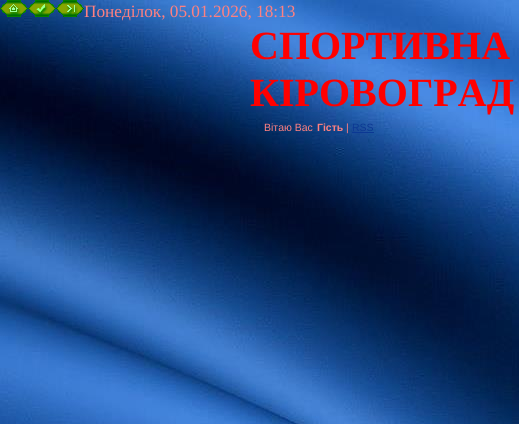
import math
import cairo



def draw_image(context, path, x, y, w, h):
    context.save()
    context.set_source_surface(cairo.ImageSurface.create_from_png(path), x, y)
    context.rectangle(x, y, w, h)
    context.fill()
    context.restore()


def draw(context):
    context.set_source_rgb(1, 1, 1)
    context.paint()
    draw_image(context, "images/1.png", 0, 0, 519, 424)
    draw_image(context, "images/2.png", 0, 0, 28, 17)
    draw_image(context, "images/3.png", 28, 0, 28, 17)
    draw_image(context, "images/4.png", 56, 0, 28, 17)
    context.set_source_rgb(11 / 255, 56 / 255, 147 / 255)
    context.rectangle(352, 132, 22, 1)
    context.fill()
    context.select_font_face("Liberation Serif")
    context.set_font_size(17.25)
    context.set_source_rgb(1, 128 / 255, 128 / 255)
    context.move_to(84, 17)
    context.show_text("Понеділок, 05.01.2026, 18:13")
    context.select_font_face("Liberation Serif", cairo.FontSlant.NORMAL, cairo.FontWeight.BOLD)
    context.set_font_size(40)
    context.set_source_rgb(1, 0, 0)
    context.move_to(250, 59)
    context.show_text("СПОРТИВНА")
    context.move_to(250, 106)
    context.show_text("КІРОВОГРАД")
    context.select_font_face("Liberation Sans")
    context.set_font_size(10.5)
    context.set_source_rgb(1, 128 / 255, 128 / 255)
    context.move_to(264, 131)
    context.show_text("Вітаю Вас")
    context.select_font_face("Liberation Sans", cairo.FontSlant.NORMAL, cairo.FontWeight.BOLD)
    context.move_to(317, 131)
    context.show_text("Гість")
    context.select_font_face("Liberation Sans")
    context.move_to(346, 131)
    context.show_text("|")
    context.set_source_rgb(11 / 255, 56 / 255, 147 / 255)
    context.move_to(352, 131)
    context.show_text("RSS")


surface = cairo.ImageSurface(cairo.Format.RGB24, 519, 424)
context = cairo.Context(surface)
options = cairo.FontOptions()
options.set_hint_metrics(cairo.HintMetrics.OFF)
options.set_hint_style(cairo.HintStyle.NONE)
context.set_font_options(options)
context.set_miter_limit(4)
draw(context)
surface.write_to_png("out.png")
